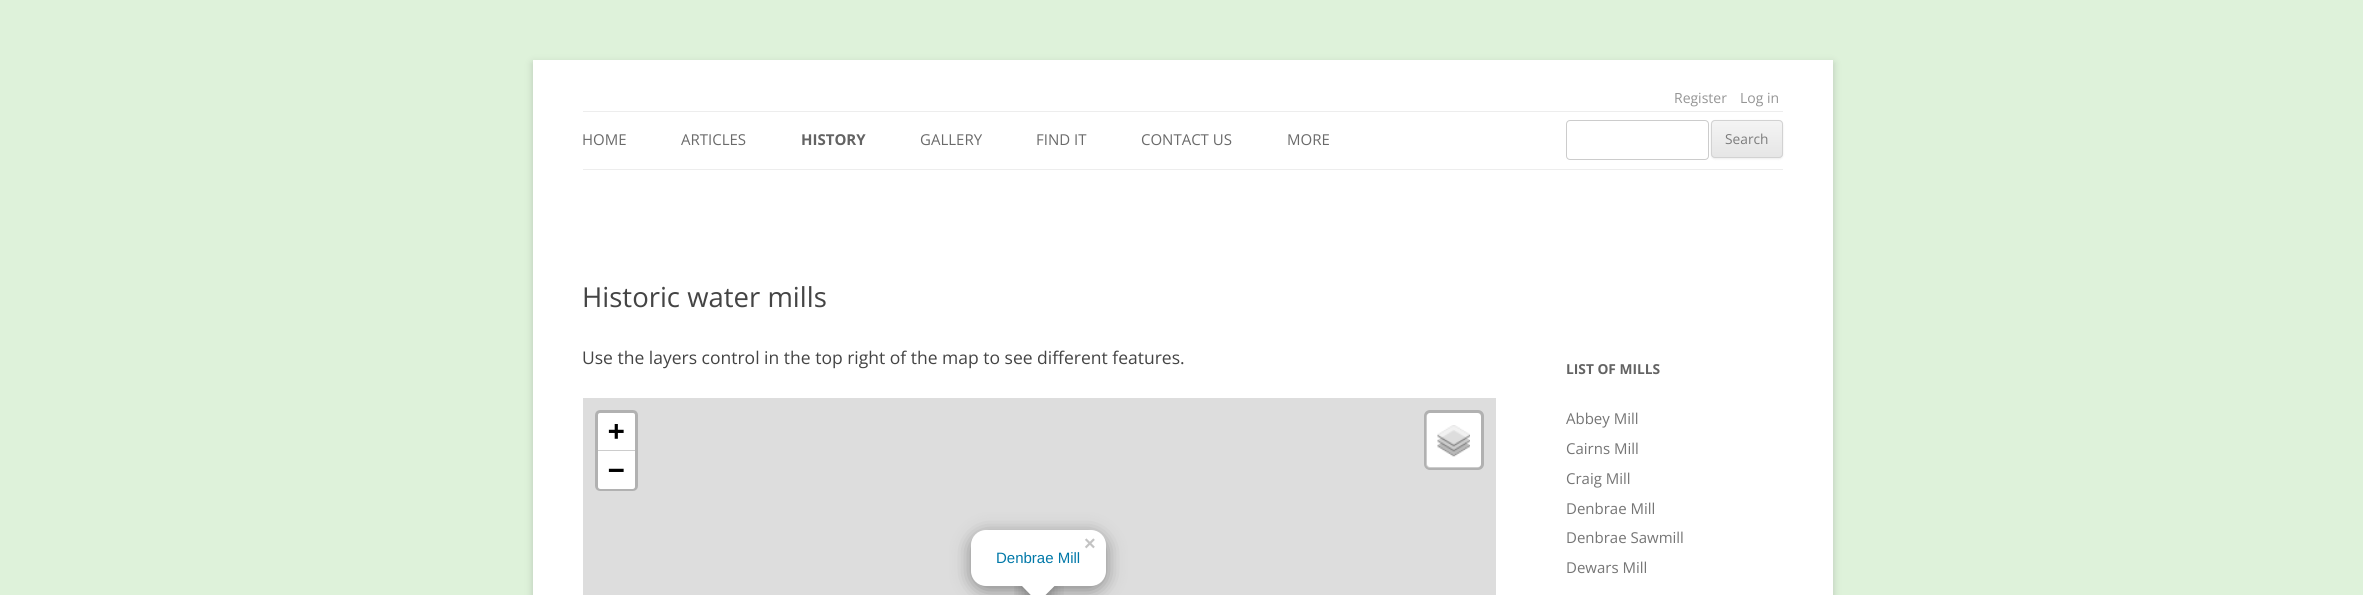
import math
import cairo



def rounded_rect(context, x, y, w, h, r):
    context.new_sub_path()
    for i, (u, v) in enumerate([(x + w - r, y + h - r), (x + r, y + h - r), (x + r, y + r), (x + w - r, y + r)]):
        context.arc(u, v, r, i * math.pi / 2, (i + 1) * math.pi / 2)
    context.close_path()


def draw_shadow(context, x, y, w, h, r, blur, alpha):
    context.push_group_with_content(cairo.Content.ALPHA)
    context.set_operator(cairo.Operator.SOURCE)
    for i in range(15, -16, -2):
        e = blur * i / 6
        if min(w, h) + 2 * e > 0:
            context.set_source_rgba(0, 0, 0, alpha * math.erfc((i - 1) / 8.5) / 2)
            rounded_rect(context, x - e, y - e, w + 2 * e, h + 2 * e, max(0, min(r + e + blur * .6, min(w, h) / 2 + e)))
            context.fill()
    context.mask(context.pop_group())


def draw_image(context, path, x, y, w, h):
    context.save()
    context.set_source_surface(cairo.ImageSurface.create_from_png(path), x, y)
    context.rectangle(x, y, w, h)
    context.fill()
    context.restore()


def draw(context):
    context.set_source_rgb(222 / 255, 242 / 255, 218 / 255)
    context.paint()
    context.set_source_rgb(100 / 255, 100 / 255, 100 / 255)
    draw_shadow(context, 533, 63, 1300, 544, 0, 4, 0.3)
    context.set_source_rgb(1, 1, 1)
    context.rectangle(533, 60, 1300, 535)
    context.fill()
    context.set_source_rgb(237 / 255, 237 / 255, 237 / 255)
    context.rectangle(583, 111, 1200, 1)
    context.fill()
    context.rectangle(583, 169, 1200, 1)
    context.fill()
    rounded_rect(context, 1566.5, 120.5, 142, 39, 3.5)
    context.set_source_rgb(204 / 255, 204 / 255, 204 / 255)
    context.set_line_width(1)
    context.stroke()
    context.set_source_rgb(64 / 255, 64 / 255, 64 / 255)
    draw_shadow(context, 1711, 121, 72, 38, 4, 1, 0.1)
    context.set_source_rgb(230 / 255, 230 / 255, 230 / 255)
    rounded_rect(context, 1711, 120, 72, 38, 4)
    context.fill()
    context.save()
    rounded_rect(context, 1711, 120, 72, 38, 4)
    context.clip()
    gradient = cairo.LinearGradient(1747, 121, 1747, 156)
    gradient.add_color_stop_rgba(0, 244 / 255, 244 / 255, 244 / 255, 1)
    gradient.add_color_stop_rgba(1, 230 / 255, 230 / 255, 230 / 255, 1)
    context.set_source(gradient)
    context.rectangle(1711, 121, 72, 35)
    context.fill()
    context.restore()
    rounded_rect(context, 1711.5, 120.5, 71, 37, 3.5)
    context.set_source_rgb(210 / 255, 210 / 255, 210 / 255)
    context.stroke()
    context.set_source_rgb(221 / 255, 221 / 255, 221 / 255)
    context.rectangle(583, 398, 913, 197)
    context.fill()
    rounded_rect(context, 596.5, 411.5, 40, 78, 3.5)
    context.set_source_rgb(177 / 255, 177 / 255, 177 / 255)
    context.set_line_width(3)
    context.stroke()
    context.set_source_rgb(1, 1, 1)
    context.new_path()
    context.move_to(600.5, 413)
    context.line_to(632.5, 413)
    context.curve_to(634, 413, 635, 414, 635, 415.5)
    context.line_to(635, 451)
    context.line_to(598, 451)
    context.line_to(598, 415.5)
    context.curve_to(598, 414, 599, 413, 600.5, 413)
    context.close_path()
    context.fill()
    context.set_source_rgb(204 / 255, 204 / 255, 204 / 255)
    context.rectangle(598, 450, 37, 1)
    context.fill()
    context.set_source_rgb(1, 1, 1)
    context.new_path()
    context.move_to(598, 451)
    context.line_to(635, 451)
    context.line_to(635, 486.5)
    context.curve_to(635, 488, 634, 489, 632.5, 489)
    context.line_to(600.5, 489)
    context.curve_to(599, 489, 598, 488, 598, 486.5)
    context.close_path()
    context.fill()
    rounded_rect(context, 1426, 413, 55, 55, 4)
    context.fill()
    rounded_rect(context, 1425.5, 411.5, 57, 57, 4.5)
    context.set_source_rgba(0, 0, 0, 0.2)
    context.stroke()
    draw_image(context, "images/1.png", 1437, 425, 33, 32)
    context.set_source_rgb(0, 0, 0)
    draw_shadow(context, 971, 534, 135, 56, 15, 9, 0.4)
    context.set_source_rgb(1, 1, 1)
    rounded_rect(context, 971, 530, 135, 56, 15)
    context.fill()
    context.save()
    context.rectangle(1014, 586, 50, 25)
    context.clip()
    context.set_source_rgb(0, 0, 0)
    draw_shadow(context, 1026, 578, 24, 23, 0, 9, 0.4)
    context.restore()
    context.save()
    context.rectangle(1014, 586, 50, 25)
    context.clip()
    context.new_path()
    context.move_to(1038, 568.5)
    context.line_to(1055, 585.5)
    context.line_to(1038, 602.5)
    context.line_to(1021.5, 585.5)
    context.close_path()
    context.fill()
    context.restore()
    context.select_font_face("Open Sans")
    context.set_font_size(14)
    context.set_source_rgb(149 / 255, 149 / 255, 149 / 255)
    context.move_to(1674, 103)
    context.show_text("Register")
    context.move_to(1740, 103)
    context.show_text("Log in")
    context.set_font_size(15)
    context.set_source_rgb(106 / 255, 106 / 255, 106 / 255)
    context.move_to(582, 145)
    context.show_text("HOME")
    context.move_to(681, 145)
    context.show_text("ARTICLES")
    context.select_font_face("Open Sans", cairo.FontSlant.NORMAL, cairo.FontWeight.BOLD)
    context.set_source_rgb(99 / 255, 99 / 255, 99 / 255)
    context.move_to(801, 145)
    context.show_text("HISTORY")
    context.select_font_face("Open Sans")
    context.set_source_rgb(106 / 255, 106 / 255, 106 / 255)
    context.move_to(920, 145)
    context.show_text("GALLERY")
    context.move_to(1036, 145)
    context.show_text("FIND IT")
    context.move_to(1141, 145)
    context.show_text("CONTACT US")
    context.move_to(1287, 145)
    context.show_text("MORE")
    context.set_font_size(13.75)
    context.set_source_rgb(124 / 255, 124 / 255, 124 / 255)
    context.move_to(1725, 144)
    context.show_text("Search")
    context.set_font_size(27.5)
    context.set_source_rgb(68 / 255, 68 / 255, 68 / 255)
    context.move_to(582, 307)
    context.show_text("Historic water mills")
    context.set_font_size(17.5)
    context.move_to(582, 364)
    context.show_text("Use the layers control in the top right of the map to see different features.")
    context.select_font_face("DejaVu Sans Mono", cairo.FontSlant.NORMAL, cairo.FontWeight.BOLD)
    context.set_font_size(27.5)
    context.set_source_rgb(0, 0, 0)
    context.move_to(608, 440)
    context.show_text("+")
    context.move_to(608, 479)
    context.show_text("−")
    context.select_font_face("Liberation Sans", cairo.FontSlant.NORMAL, cairo.FontWeight.BOLD)
    context.set_font_size(20)
    context.set_source_rgb(195 / 255, 195 / 255, 195 / 255)
    context.move_to(1084, 550)
    context.show_text("×")
    context.select_font_face("Liberation Sans")
    context.set_font_size(15)
    context.set_source_rgb(0, 120 / 255, 168 / 255)
    context.move_to(996, 563)
    context.show_text("Denbrae Mill")
    context.select_font_face("Open Sans", cairo.FontSlant.NORMAL, cairo.FontWeight.BOLD)
    context.set_font_size(13.75)
    context.set_source_rgb(99 / 255, 99 / 255, 99 / 255)
    context.move_to(1566, 374)
    context.show_text("LIST OF MILLS")
    context.select_font_face("Open Sans")
    context.set_font_size(15)
    context.set_source_rgb(117 / 255, 117 / 255, 117 / 255)
    context.move_to(1566, 424)
    context.show_text("Abbey Mill")
    context.move_to(1566, 454)
    context.show_text("Cairns Mill")
    context.move_to(1566, 484)
    context.show_text("Craig Mill")
    context.move_to(1566, 514)
    context.show_text("Denbrae Mill")
    context.move_to(1566, 543)
    context.show_text("Denbrae Sawmill")
    context.move_to(1566, 573)
    context.show_text("Dewars Mill")


surface = cairo.ImageSurface(cairo.Format.RGB24, 2363, 595)
context = cairo.Context(surface)
options = cairo.FontOptions()
options.set_hint_metrics(cairo.HintMetrics.OFF)
options.set_hint_style(cairo.HintStyle.NONE)
context.set_font_options(options)
context.set_miter_limit(4)
draw(context)
surface.write_to_png("out.png")
